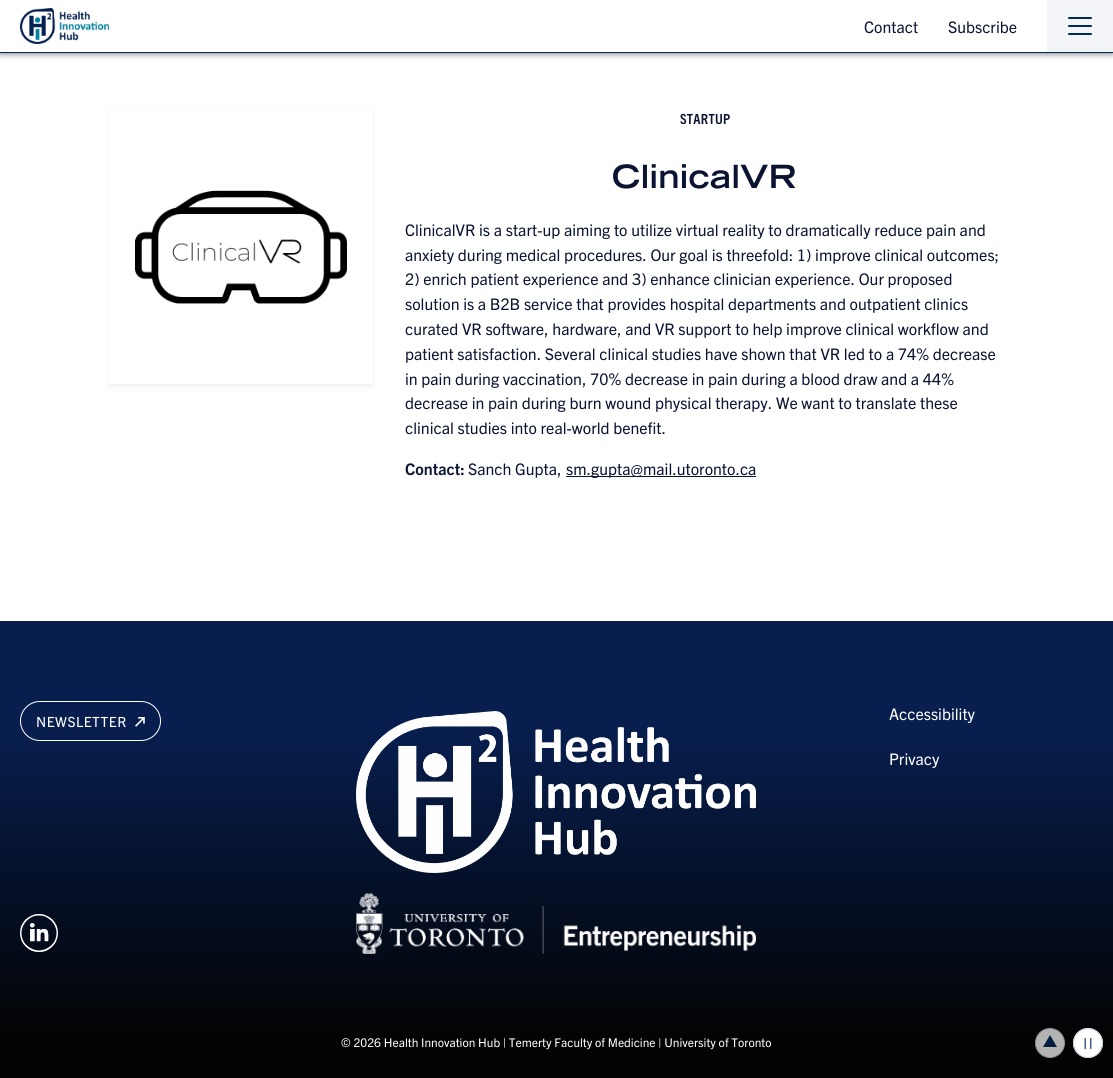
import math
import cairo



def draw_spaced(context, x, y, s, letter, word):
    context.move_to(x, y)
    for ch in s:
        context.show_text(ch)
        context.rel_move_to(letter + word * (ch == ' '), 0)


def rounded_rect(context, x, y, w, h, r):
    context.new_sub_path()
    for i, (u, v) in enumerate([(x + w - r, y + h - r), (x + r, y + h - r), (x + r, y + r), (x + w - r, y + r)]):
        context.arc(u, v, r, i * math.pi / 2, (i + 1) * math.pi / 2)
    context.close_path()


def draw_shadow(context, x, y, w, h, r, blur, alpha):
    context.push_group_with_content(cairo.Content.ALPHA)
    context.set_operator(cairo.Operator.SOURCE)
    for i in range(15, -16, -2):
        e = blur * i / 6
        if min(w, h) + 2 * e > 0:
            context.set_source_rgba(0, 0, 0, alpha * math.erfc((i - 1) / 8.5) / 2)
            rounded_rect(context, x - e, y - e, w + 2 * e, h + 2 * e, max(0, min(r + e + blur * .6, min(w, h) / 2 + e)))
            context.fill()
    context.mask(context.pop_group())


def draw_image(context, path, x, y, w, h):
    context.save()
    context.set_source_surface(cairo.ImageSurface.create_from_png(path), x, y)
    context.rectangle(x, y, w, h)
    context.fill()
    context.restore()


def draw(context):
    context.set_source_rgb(1, 1, 1)
    context.paint()
    context.save()
    context.rectangle(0, 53, 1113, 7)
    context.clip()
    context.set_source_rgb(128 / 255, 128 / 255, 128 / 255)
    draw_shadow(context, 0, 1, 1113, 53, 0, 3, 1)
    context.restore()
    context.set_source_rgb(0, 42 / 255, 92 / 255)
    context.rectangle(0, 52, 1113, 1)
    context.fill()
    draw_image(context, "images/1.png", 20, 8, 89, 36)
    context.set_source_rgb(243 / 255, 244 / 255, 248 / 255)
    context.rectangle(1047, 0, 66, 52)
    context.fill()
    context.set_source_rgb(0, 42 / 255, 92 / 255)
    rounded_rect(context, 1068, 17, 24, 2, 1)
    context.fill()
    rounded_rect(context, 1068, 25, 24, 2, 1)
    context.fill()
    rounded_rect(context, 1068, 33, 24, 2, 1)
    context.fill()
    context.save()
    context.set_fill_rule(cairo.FillRule.EVEN_ODD)
    context.new_path()
    context.move_to(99, 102)
    context.line_to(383, 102)
    context.line_to(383, 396)
    context.line_to(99, 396)
    context.close_path()
    context.move_to(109, 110)
    context.line_to(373, 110)
    context.line_to(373, 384)
    context.line_to(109, 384)
    context.close_path()
    context.clip()
    context.set_source_rgb(221 / 255, 221 / 255, 221 / 255)
    draw_shadow(context, 109, 112, 264, 274, 0, 3, 0.5)
    context.restore()
    draw_image(context, "images/2.png", 135, 190, 212, 114)
    context.set_source_rgb(10 / 255, 19 / 255, 49 / 255)
    context.rectangle(566, 476, 190, 1)
    context.fill()
    gradient = cairo.LinearGradient(557, 621, 557, 1078)
    gradient.add_color_stop_rgba(0.24, 7 / 255, 30 / 255, 78 / 255, 1)
    gradient.add_color_stop_rgba(0.91, 3 / 255, 3 / 255, 3 / 255, 1)
    context.set_source(gradient)
    context.rectangle(0, 621, 1113, 457)
    context.fill()
    rounded_rect(context, 20.5, 701.5, 140, 39, 19.5)
    context.set_source_rgb(1, 1, 1)
    context.set_line_width(1)
    context.stroke()
    draw_image(context, "images/3.png", 135, 717, 10, 10)
    draw_image(context, "images/4.png", 20, 914, 38, 38)
    draw_image(context, "images/5.png", 356, 711, 400, 162)
    draw_image(context, "images/6.png", 356, 893, 400, 61)
    context.set_source_rgb(179 / 255, 179 / 255, 179 / 255)
    context.arc(1050, 1043, 14.5, 0, 2 * math.pi)
    context.fill_preserve()
    context.set_source_rgb(140 / 255, 147 / 255, 152 / 255)
    context.stroke()
    context.set_source_rgb(1 / 255, 30 / 255, 65 / 255)
    context.new_path()
    context.move_to(1057, 1047)
    context.line_to(1043, 1047)
    context.line_to(1050, 1035)
    context.close_path()
    context.fill()
    context.set_source_rgb(1, 1, 1)
    context.arc(1088, 1043, 15, 0, 2 * math.pi)
    context.fill()
    draw_image(context, "images/7.png", 1084, 1038, 8, 12)
    context.arc(1088, 1043, 14.5, 0, 2 * math.pi)
    context.set_source_rgb(198 / 255, 208 / 255, 216 / 255)
    context.stroke()
    context.select_font_face("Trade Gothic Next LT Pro")
    context.set_font_size(16)
    context.set_source_rgb(10 / 255, 19 / 255, 49 / 255)
    context.move_to(864, 33)
    context.show_text("Contact")
    context.move_to(948, 33)
    context.show_text("Subscribe")
    context.select_font_face("Trade Gothic Next LT Pro", cairo.FontSlant.NORMAL, cairo.FontWeight.BOLD)
    context.set_font_size(14)
    draw_spaced(context, 680, 124, "STARTUP", 0.25, 0)
    context.select_font_face("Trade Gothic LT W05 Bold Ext", cairo.FontSlant.NORMAL, cairo.FontWeight.BOLD)
    context.set_font_size(32)
    context.move_to(612, 188)
    context.show_text("ClinicalVR")
    context.select_font_face("Trade Gothic Next LT Pro")
    context.set_font_size(16)
    context.move_to(405, 236)
    context.show_text("ClinicalVR is a start-up aiming to utilize virtual reality to dramatically reduce pain and")
    context.move_to(405, 261)
    context.show_text("anxiety during medical procedures. Our goal is threefold: 1) improve clinical outcomes;")
    context.move_to(405, 285)
    context.show_text("2) enrich patient experience and 3) enhance clinician experience. Our proposed")
    context.move_to(405, 310)
    context.show_text("solution is a B2B service that provides hospital departments and outpatient clinics")
    context.move_to(405, 335)
    context.show_text("curated VR software, hardware, and VR support to help improve clinical workflow and")
    context.move_to(405, 360)
    context.show_text("patient satisfaction. Several clinical studies have shown that VR led to a 74% decrease")
    context.move_to(405, 385)
    context.show_text("in pain during vaccination, 70% decrease in pain during a blood draw and a 44%")
    context.move_to(405, 409)
    context.show_text("decrease in pain during burn wound physical therapy. We want to translate these")
    context.move_to(405, 434)
    context.show_text("clinical studies into real-world benefit.")
    context.select_font_face("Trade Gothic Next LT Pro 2", cairo.FontSlant.NORMAL, cairo.FontWeight.BOLD)
    context.move_to(405, 475)
    context.show_text("Contact:")
    context.select_font_face("Trade Gothic Next LT Pro")
    context.move_to(468, 475)
    context.show_text("Sanch Gupta,")
    context.move_to(566, 475)
    context.show_text("sm.gupta@mail.utoronto.ca")
    context.set_font_size(14)
    context.set_source_rgb(1, 1, 1)
    draw_spaced(context, 36, 727, "NEWSLETTER", 0.5, 0)
    context.set_font_size(16)
    context.move_to(889, 720)
    context.show_text("Accessibility")
    context.move_to(889, 765)
    context.show_text("Privacy")
    context.set_font_size(12)
    context.move_to(341, 1047)
    context.show_text("© 2026 Health Innovation Hub | Temerty Faculty of Medicine | University of Toronto")


surface = cairo.ImageSurface(cairo.Format.RGB24, 1113, 1078)
context = cairo.Context(surface)
options = cairo.FontOptions()
options.set_hint_metrics(cairo.HintMetrics.OFF)
options.set_hint_style(cairo.HintStyle.NONE)
context.set_font_options(options)
context.set_miter_limit(4)
draw(context)
surface.write_to_png("out.png")
